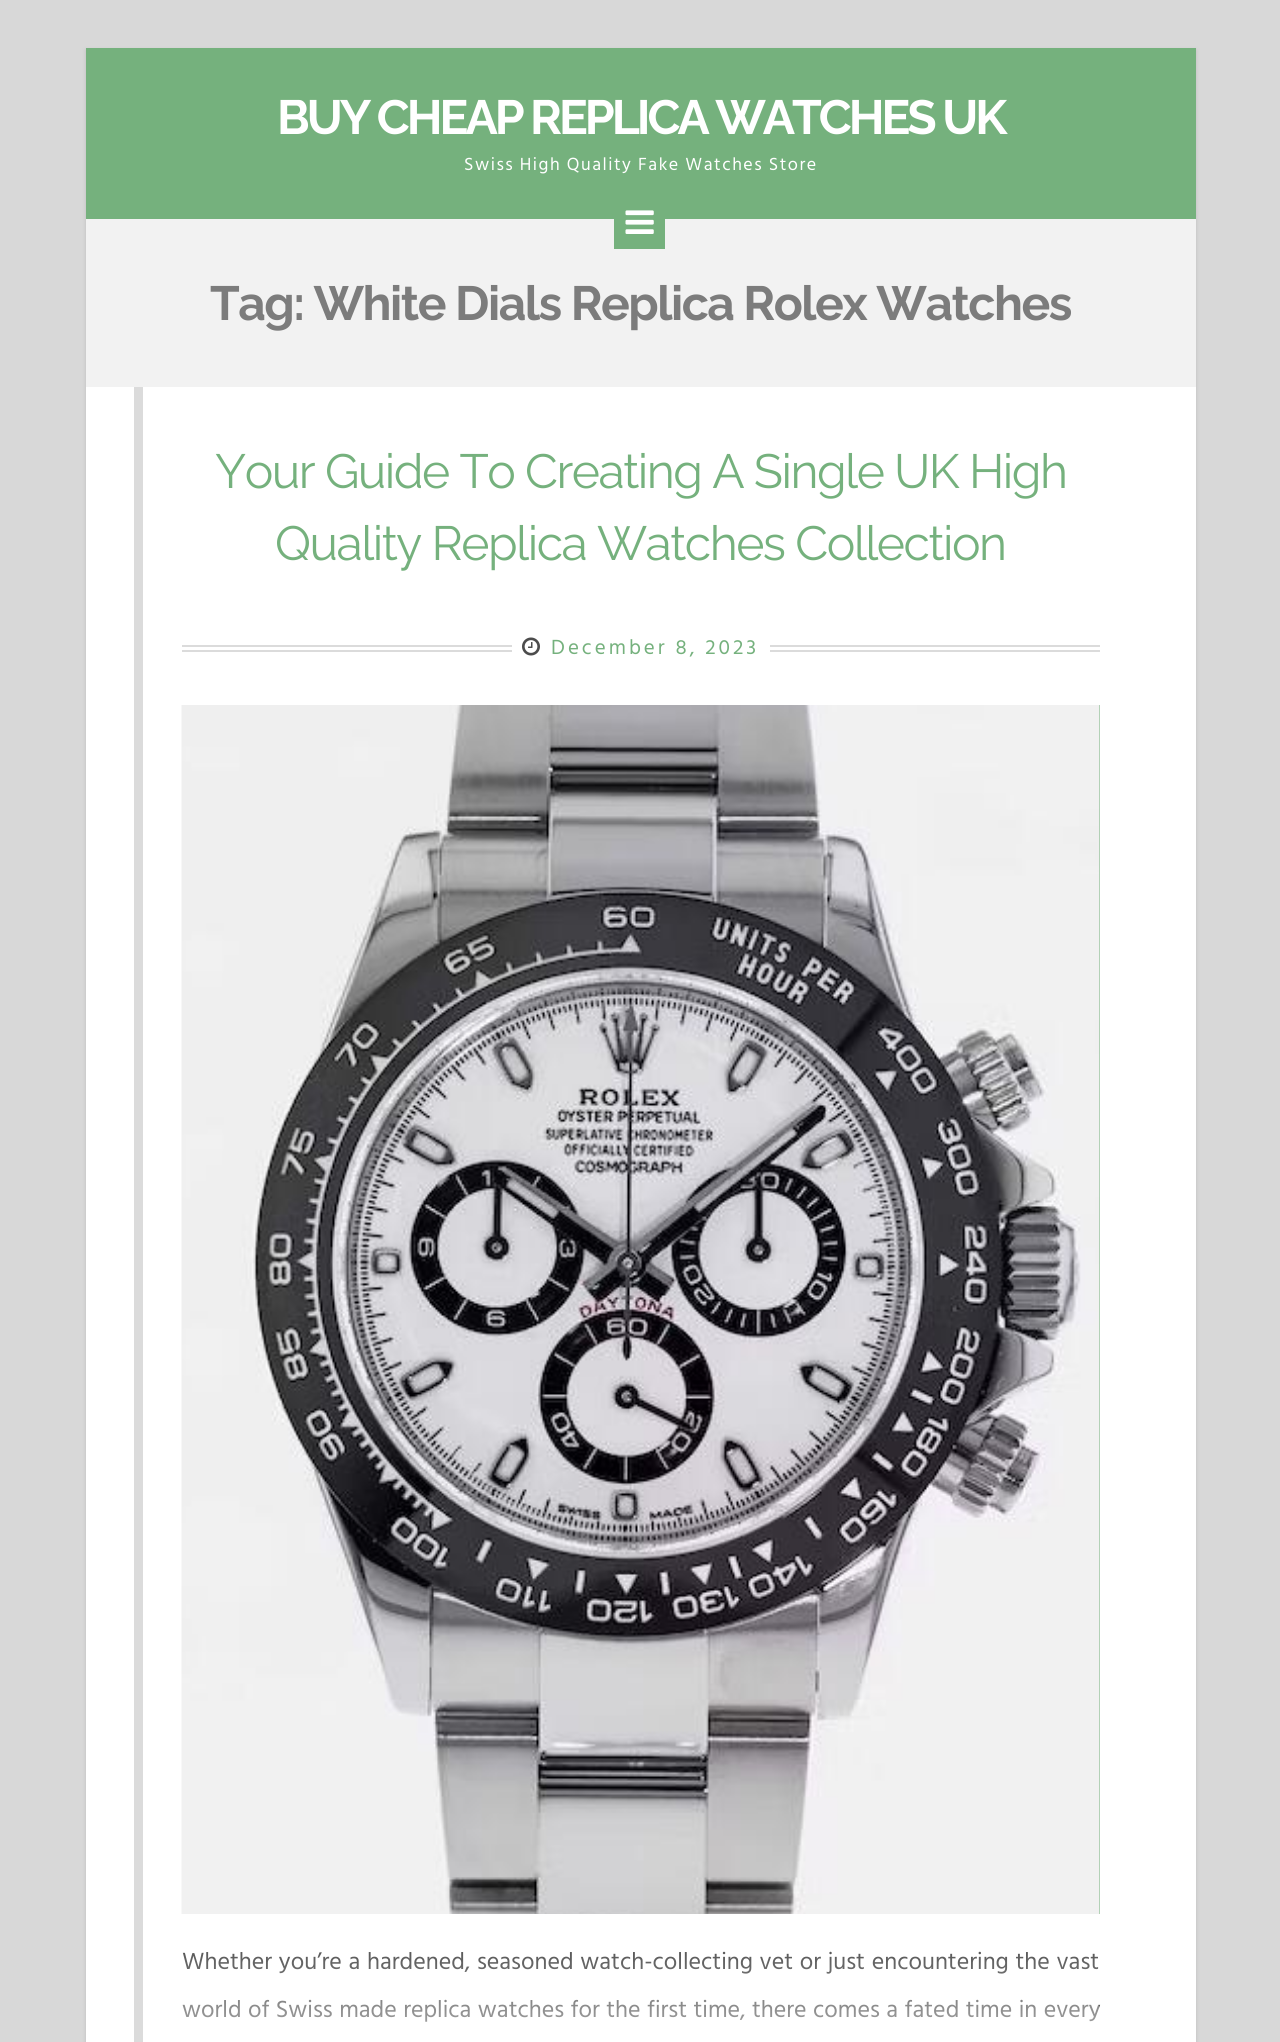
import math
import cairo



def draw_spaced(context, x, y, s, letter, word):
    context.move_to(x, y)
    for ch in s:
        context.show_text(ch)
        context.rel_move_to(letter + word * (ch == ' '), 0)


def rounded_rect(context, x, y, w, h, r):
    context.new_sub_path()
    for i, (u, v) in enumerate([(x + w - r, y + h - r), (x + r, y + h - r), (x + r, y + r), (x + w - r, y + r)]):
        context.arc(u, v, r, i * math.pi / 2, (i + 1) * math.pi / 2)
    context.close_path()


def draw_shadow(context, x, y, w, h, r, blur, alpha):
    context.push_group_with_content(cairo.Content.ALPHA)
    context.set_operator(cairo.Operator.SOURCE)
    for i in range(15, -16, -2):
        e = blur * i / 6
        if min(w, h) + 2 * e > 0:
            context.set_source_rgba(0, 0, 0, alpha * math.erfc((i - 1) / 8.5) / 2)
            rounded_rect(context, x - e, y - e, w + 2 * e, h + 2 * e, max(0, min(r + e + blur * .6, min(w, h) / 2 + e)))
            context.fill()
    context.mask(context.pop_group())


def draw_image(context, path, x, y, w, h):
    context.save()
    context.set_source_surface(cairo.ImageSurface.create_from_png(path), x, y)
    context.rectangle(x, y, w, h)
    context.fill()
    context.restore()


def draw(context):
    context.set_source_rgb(216 / 255, 216 / 255, 216 / 255)
    context.paint()
    context.set_source_rgb(76 / 255, 76 / 255, 76 / 255)
    draw_shadow(context, 86, 50, 1110, 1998, 0, 2, 0.2)
    context.set_source_rgb(117 / 255, 177 / 255, 125 / 255)
    context.rectangle(86, 48, 1110, 171)
    context.fill()
    context.set_source_rgb(242 / 255, 242 / 255, 242 / 255)
    context.rectangle(86, 219, 1110, 168)
    context.fill()
    context.set_source_rgb(117 / 255, 177 / 255, 125 / 255)
    context.rectangle(614, 219, 51, 30)
    context.fill()
    draw_image(context, "images/1.png", 625, 210, 29, 24)
    context.set_source_rgb(1, 1, 1)
    context.rectangle(86, 387, 1110, 1655)
    context.fill()
    context.set_source_rgb(219 / 255, 219 / 255, 219 / 255)
    context.rectangle(134, 387, 9, 1655)
    context.fill()
    context.rectangle(182, 645, 918, 2)
    context.fill()
    context.rectangle(182, 650, 918, 2)
    context.fill()
    context.set_source_rgb(1, 1, 1)
    context.rectangle(512, 645, 258, 7)
    context.fill()
    draw_image(context, "images/2.png", 522, 637, 18, 19)
    context.set_source_rgb(117 / 255, 177 / 255, 125 / 255)
    context.rectangle(1099, 705, 1, 1209)
    context.fill()
    draw_image(context, "images/3.png", 181, 705, 919, 1209)
    context.select_font_face("Raleway", cairo.FontSlant.NORMAL, cairo.FontWeight.BOLD)
    context.set_font_size(48)
    context.set_source_rgb(1, 1, 1)
    draw_spaced(context, 277, 134, "BUY CHEAP REPLICA WATCHES UK", -3, 0)
    context.select_font_face("Hind Siliguri")
    context.set_font_size(18)
    draw_spaced(context, 464, 170, "Swiss High Quality Fake Watches Store", 1.5, 0)
    context.select_font_face("Raleway", cairo.FontSlant.NORMAL, cairo.FontWeight.BOLD)
    context.set_font_size(48)
    context.set_source_rgb(124 / 255, 124 / 255, 124 / 255)
    draw_spaced(context, 210, 320, "Tag: White Dials Replica Rolex Watches", -1.5, 0)
    context.select_font_face("Raleway")
    context.set_source_rgb(117 / 255, 177 / 255, 125 / 255)
    draw_spaced(context, 215, 488, "Your Guide To Creating A Single UK High", -1.5, 0)
    draw_spaced(context, 275, 560, "Quality Replica Watches Collection", -1.5, 0)
    context.select_font_face("Hind Siliguri")
    context.set_font_size(21)
    draw_spaced(context, 551, 654, "December 8, 2023", 3, 0)
    context.set_font_size(24)
    context.set_source_rgb(76 / 255, 76 / 255, 76 / 255)
    draw_spaced(context, 182, 1969, "Whether you’re a hardened, seasoned watch-collecting vet or just encountering the vast", 0, 1.25)
    draw_spaced(context, 182, 2017, "world of Swiss made replica watches for the first time, there comes a fated time in every", 0, 1)
    gradient = cairo.LinearGradient(641, 1938, 641, 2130)
    gradient.add_color_stop_rgba(0, 1, 1, 1, 0)
    gradient.add_color_stop_rgba(1, 1, 1, 1, 1)
    context.set_source(gradient)
    context.rectangle(182, 1952, 917, 70)
    context.fill()


surface = cairo.ImageSurface(cairo.Format.RGB24, 1280, 2042)
context = cairo.Context(surface)
options = cairo.FontOptions()
options.set_hint_metrics(cairo.HintMetrics.OFF)
options.set_hint_style(cairo.HintStyle.NONE)
context.set_font_options(options)
context.set_miter_limit(4)
draw(context)
surface.write_to_png("out.png")
